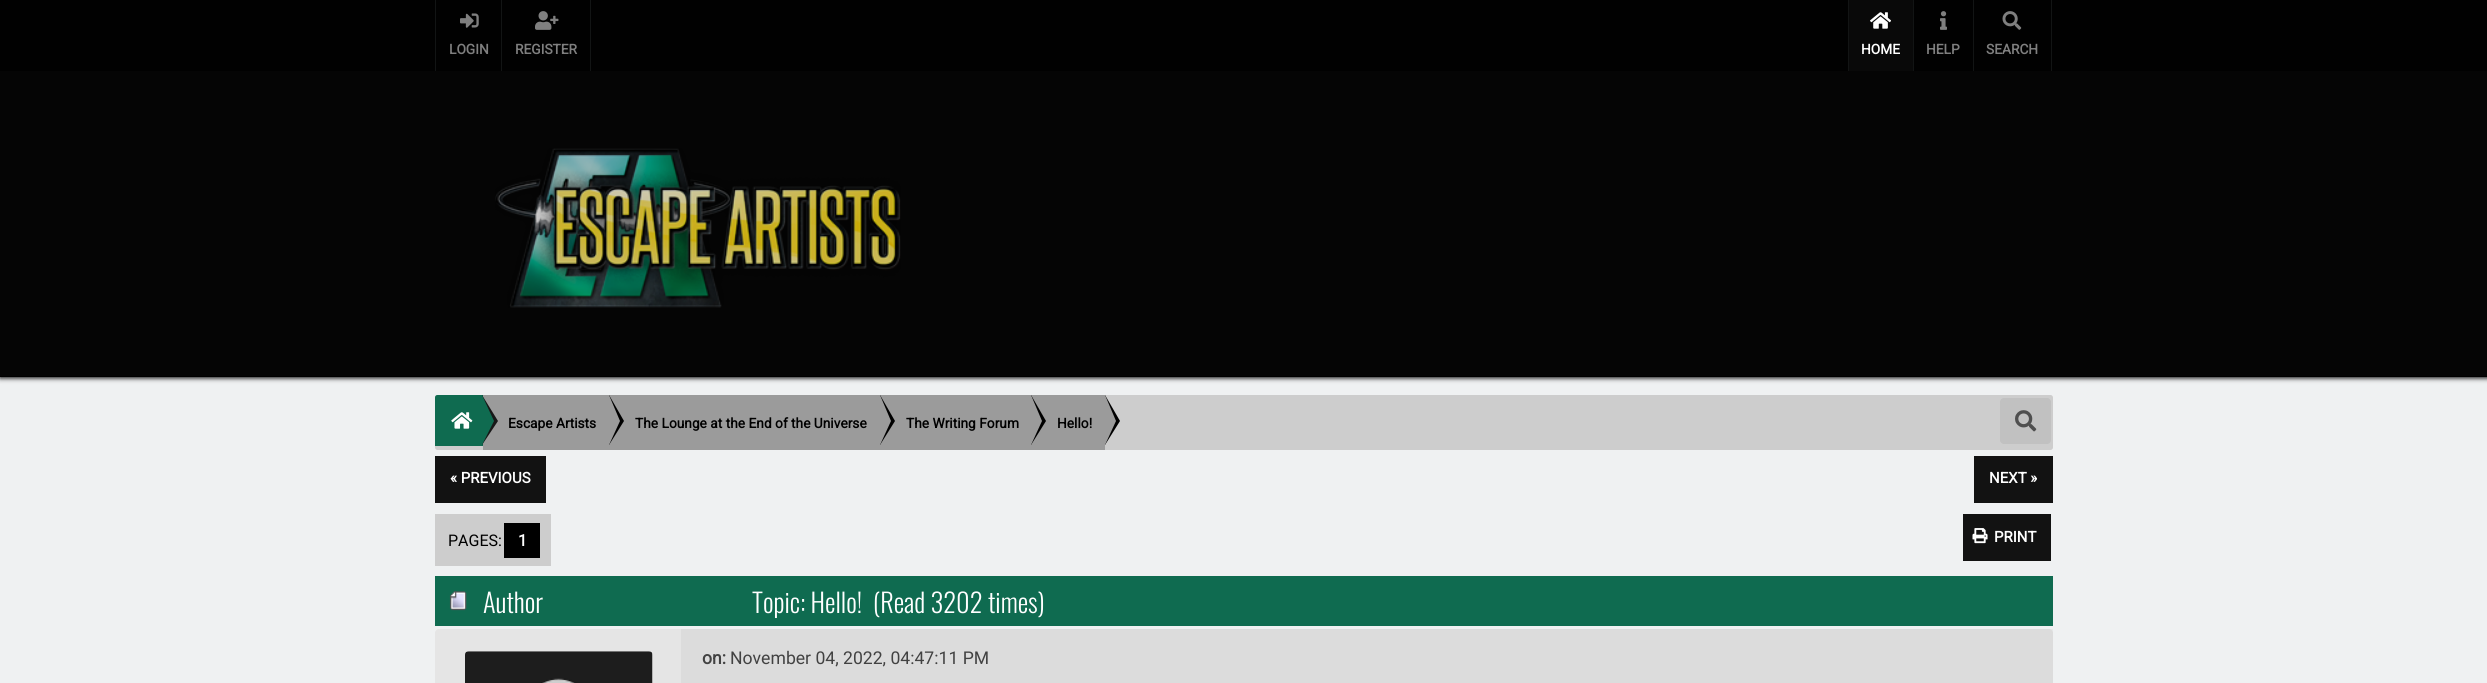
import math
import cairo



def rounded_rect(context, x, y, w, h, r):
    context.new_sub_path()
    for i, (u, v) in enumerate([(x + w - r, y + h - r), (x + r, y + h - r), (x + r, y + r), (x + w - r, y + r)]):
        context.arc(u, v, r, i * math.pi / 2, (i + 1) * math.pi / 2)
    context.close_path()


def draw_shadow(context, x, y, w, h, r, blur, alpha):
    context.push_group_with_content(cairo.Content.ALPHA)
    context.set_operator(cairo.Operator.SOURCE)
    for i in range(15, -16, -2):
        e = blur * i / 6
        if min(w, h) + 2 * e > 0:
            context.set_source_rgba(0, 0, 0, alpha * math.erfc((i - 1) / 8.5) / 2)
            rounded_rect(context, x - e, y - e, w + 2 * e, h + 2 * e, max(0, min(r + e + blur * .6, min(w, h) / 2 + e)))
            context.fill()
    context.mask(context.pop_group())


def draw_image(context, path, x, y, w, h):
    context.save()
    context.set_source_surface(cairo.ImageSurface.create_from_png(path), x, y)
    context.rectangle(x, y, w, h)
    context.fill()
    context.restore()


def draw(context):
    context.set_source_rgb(239 / 255, 241 / 255, 242 / 255)
    context.paint()
    context.set_source_rgb(0, 0, 0)
    draw_shadow(context, 0, 0, 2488, 378, 0, 2.5, 1)
    context.set_source_rgb(5 / 255, 5 / 255, 5 / 255)
    context.rectangle(0, 71, 2487, 305)
    context.fill()
    context.set_source_rgb(0, 0, 0)
    context.rectangle(0, 376, 2487, 1)
    context.fill()
    context.set_source_rgb(1 / 255, 1 / 255, 1 / 255)
    context.rectangle(0, 0, 2487, 71)
    context.fill()
    context.set_source_rgb(18 / 255, 20 / 255, 20 / 255)
    context.rectangle(501, 0, 1, 71)
    context.fill()
    context.rectangle(435, 0, 1, 71)
    context.fill()
    draw_image(context, "images/1.png", 460, 13, 19, 15)
    context.rectangle(590, 0, 1, 71)
    context.fill()
    draw_image(context, "images/2.png", 535, 11, 24, 19)
    context.set_source_rgb(9 / 255, 9 / 255, 9 / 255)
    context.rectangle(1849, 0, 64, 71)
    context.fill()
    context.set_source_rgb(18 / 255, 20 / 255, 20 / 255)
    context.rectangle(1913, 0, 1, 71)
    context.fill()
    context.rectangle(1848, 0, 1, 71)
    context.fill()
    draw_image(context, "images/3.png", 1870, 12, 21, 17)
    context.rectangle(1973, 0, 1, 71)
    context.fill()
    draw_image(context, "images/4.png", 1940, 11, 7, 19)
    context.rectangle(2051, 0, 1, 71)
    context.fill()
    draw_image(context, "images/5.png", 2002, 11, 20, 19)
    draw_image(context, "images/6.png", 495, 148, 406, 160)
    context.set_source_rgb(205 / 255, 205 / 255, 205 / 255)
    rounded_rect(context, 435, 395, 1618, 55, 2.5)
    context.fill()
    context.set_source_rgb(15 / 255, 107 / 255, 80 / 255)
    context.new_path()
    context.move_to(437.5, 395)
    context.line_to(483, 395)
    context.line_to(483, 446)
    context.line_to(435, 446)
    context.line_to(435, 397.5)
    context.curve_to(435, 396, 436, 395, 437.5, 395)
    context.close_path()
    context.fill()
    draw_image(context, "images/7.png", 451, 412, 22, 17)
    context.set_source_rgb(155 / 255, 155 / 255, 155 / 255)
    context.rectangle(483, 395, 622, 55)
    context.fill()
    context.set_source_rgb(23 / 255, 23 / 255, 23 / 255)
    context.new_path()
    context.move_to(482, 445)
    context.line_to(482, 395)
    context.line_to(498, 421)
    context.close_path()
    context.fill()
    context.set_source_rgb(15 / 255, 107 / 255, 80 / 255)
    context.new_path()
    context.move_to(482, 445)
    context.line_to(482, 395)
    context.line_to(494, 421)
    context.close_path()
    context.fill()
    context.set_source_rgb(0, 0, 0)
    context.new_path()
    context.move_to(609, 445)
    context.line_to(609, 395)
    context.line_to(624, 421)
    context.close_path()
    context.fill()
    context.set_source_rgb(155 / 255, 155 / 255, 155 / 255)
    context.new_path()
    context.move_to(609, 445)
    context.line_to(609, 395)
    context.line_to(620, 421)
    context.close_path()
    context.fill()
    context.set_source_rgb(0, 0, 0)
    context.new_path()
    context.move_to(880, 445)
    context.line_to(880, 395)
    context.line_to(895, 421)
    context.close_path()
    context.fill()
    context.set_source_rgb(155 / 255, 155 / 255, 155 / 255)
    context.new_path()
    context.move_to(880, 445)
    context.line_to(880, 395)
    context.line_to(891, 421)
    context.close_path()
    context.fill()
    context.set_source_rgb(0, 0, 0)
    context.new_path()
    context.move_to(1031, 445)
    context.line_to(1031, 395)
    context.line_to(1046, 421)
    context.close_path()
    context.fill()
    context.set_source_rgb(155 / 255, 155 / 255, 155 / 255)
    context.new_path()
    context.move_to(1031, 445)
    context.line_to(1031, 395)
    context.line_to(1042, 421)
    context.close_path()
    context.fill()
    context.set_source_rgb(0, 0, 0)
    context.new_path()
    context.move_to(1105, 445)
    context.line_to(1105, 395)
    context.line_to(1120, 421)
    context.close_path()
    context.fill()
    context.set_source_rgb(155 / 255, 155 / 255, 155 / 255)
    context.new_path()
    context.move_to(1105, 445)
    context.line_to(1105, 395)
    context.line_to(1116, 421)
    context.close_path()
    context.fill()
    context.set_source_rgb(193 / 255, 193 / 255, 193 / 255)
    rounded_rect(context, 2000, 398, 51, 46, 4)
    context.fill()
    draw_image(context, "images/8.png", 2015, 410, 22, 22)
    context.set_source_rgb(18 / 255, 18 / 255, 18 / 255)
    context.rectangle(435, 456, 111, 47)
    context.fill()
    context.rectangle(1974, 456, 79, 47)
    context.fill()
    context.set_source_rgb(205 / 255, 205 / 255, 205 / 255)
    context.rectangle(435, 514, 116, 52)
    context.fill()
    context.set_source_rgb(0, 0, 0)
    context.rectangle(504, 523, 36, 35)
    context.fill()
    context.set_source_rgb(18 / 255, 18 / 255, 18 / 255)
    context.rectangle(1963, 514, 88, 47)
    context.fill()
    draw_image(context, "images/9.png", 1972, 528, 16, 16)
    context.set_source_rgb(15 / 255, 107 / 255, 80 / 255)
    context.rectangle(435, 576, 1618, 50)
    context.fill()
    draw_image(context, "images/10.png", 449, 591, 18, 20)
    context.set_source_rgb(229 / 255, 229 / 255, 229 / 255)
    rounded_rect(context, 435, 629, 1618, 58, 4)
    context.fill()
    draw_image(context, "images/11.png", 465, 651, 188, 32)
    context.set_source_rgba(0, 0, 0, 0.04)
    context.rectangle(681, 629, 1372, 54)
    context.fill()
    context.select_font_face("Roboto", cairo.FontSlant.NORMAL, cairo.FontWeight.BOLD)
    context.set_font_size(13.75)
    context.set_source_rgb(127 / 255, 127 / 255, 127 / 255)
    context.move_to(449, 54)
    context.show_text("LOGIN")
    context.move_to(515, 54)
    context.show_text("REGISTER")
    context.set_source_rgb(1, 1, 1)
    context.move_to(1861, 54)
    context.show_text("HOME")
    context.set_source_rgb(127 / 255, 127 / 255, 127 / 255)
    context.move_to(1926, 54)
    context.show_text("HELP")
    context.move_to(1986, 54)
    context.show_text("SEARCH")
    context.set_source_rgb(0, 0, 0)
    context.move_to(508, 428)
    context.show_text("Escape Artists")
    context.move_to(635, 428)
    context.show_text("The Lounge at the End of the Universe")
    context.move_to(906, 428)
    context.show_text("The Writing Forum")
    context.move_to(1057, 428)
    context.show_text("Hello!")
    context.set_font_size(15)
    context.set_source_rgb(1, 1, 1)
    context.move_to(450, 483)
    context.show_text("« PREVIOUS")
    context.move_to(1989, 483)
    context.show_text("NEXT »")
    context.select_font_face("Roboto")
    context.set_font_size(16)
    context.set_source_rgb(0, 0, 0)
    context.move_to(448, 546)
    context.show_text("PAGES:")
    context.select_font_face("Roboto", cairo.FontSlant.NORMAL, cairo.FontWeight.BOLD)
    context.set_source_rgb(1, 1, 1)
    context.move_to(518, 546)
    context.show_text("1")
    context.set_font_size(15)
    context.move_to(1994, 542)
    context.show_text("PRINT")
    context.select_font_face("Oswald Light")
    context.set_font_size(26.4)
    context.move_to(483, 613)
    context.show_text("Author")
    context.move_to(752, 613)
    context.show_text("Topic: Hello!  (Read 3202 times)")
    context.select_font_face("Roboto", cairo.FontSlant.NORMAL, cairo.FontWeight.BOLD)
    context.set_font_size(17.6)
    context.set_source_rgb(66 / 255, 66 / 255, 66 / 255)
    context.move_to(702, 664)
    context.show_text("on:")
    context.select_font_face("Roboto")
    context.move_to(730, 664)
    context.show_text("November 04, 2022, 04:47:11 PM")


surface = cairo.ImageSurface(cairo.Format.RGB24, 2487, 683)
context = cairo.Context(surface)
options = cairo.FontOptions()
options.set_hint_metrics(cairo.HintMetrics.OFF)
options.set_hint_style(cairo.HintStyle.NONE)
context.set_font_options(options)
context.set_miter_limit(4)
draw(context)
surface.write_to_png("out.png")
